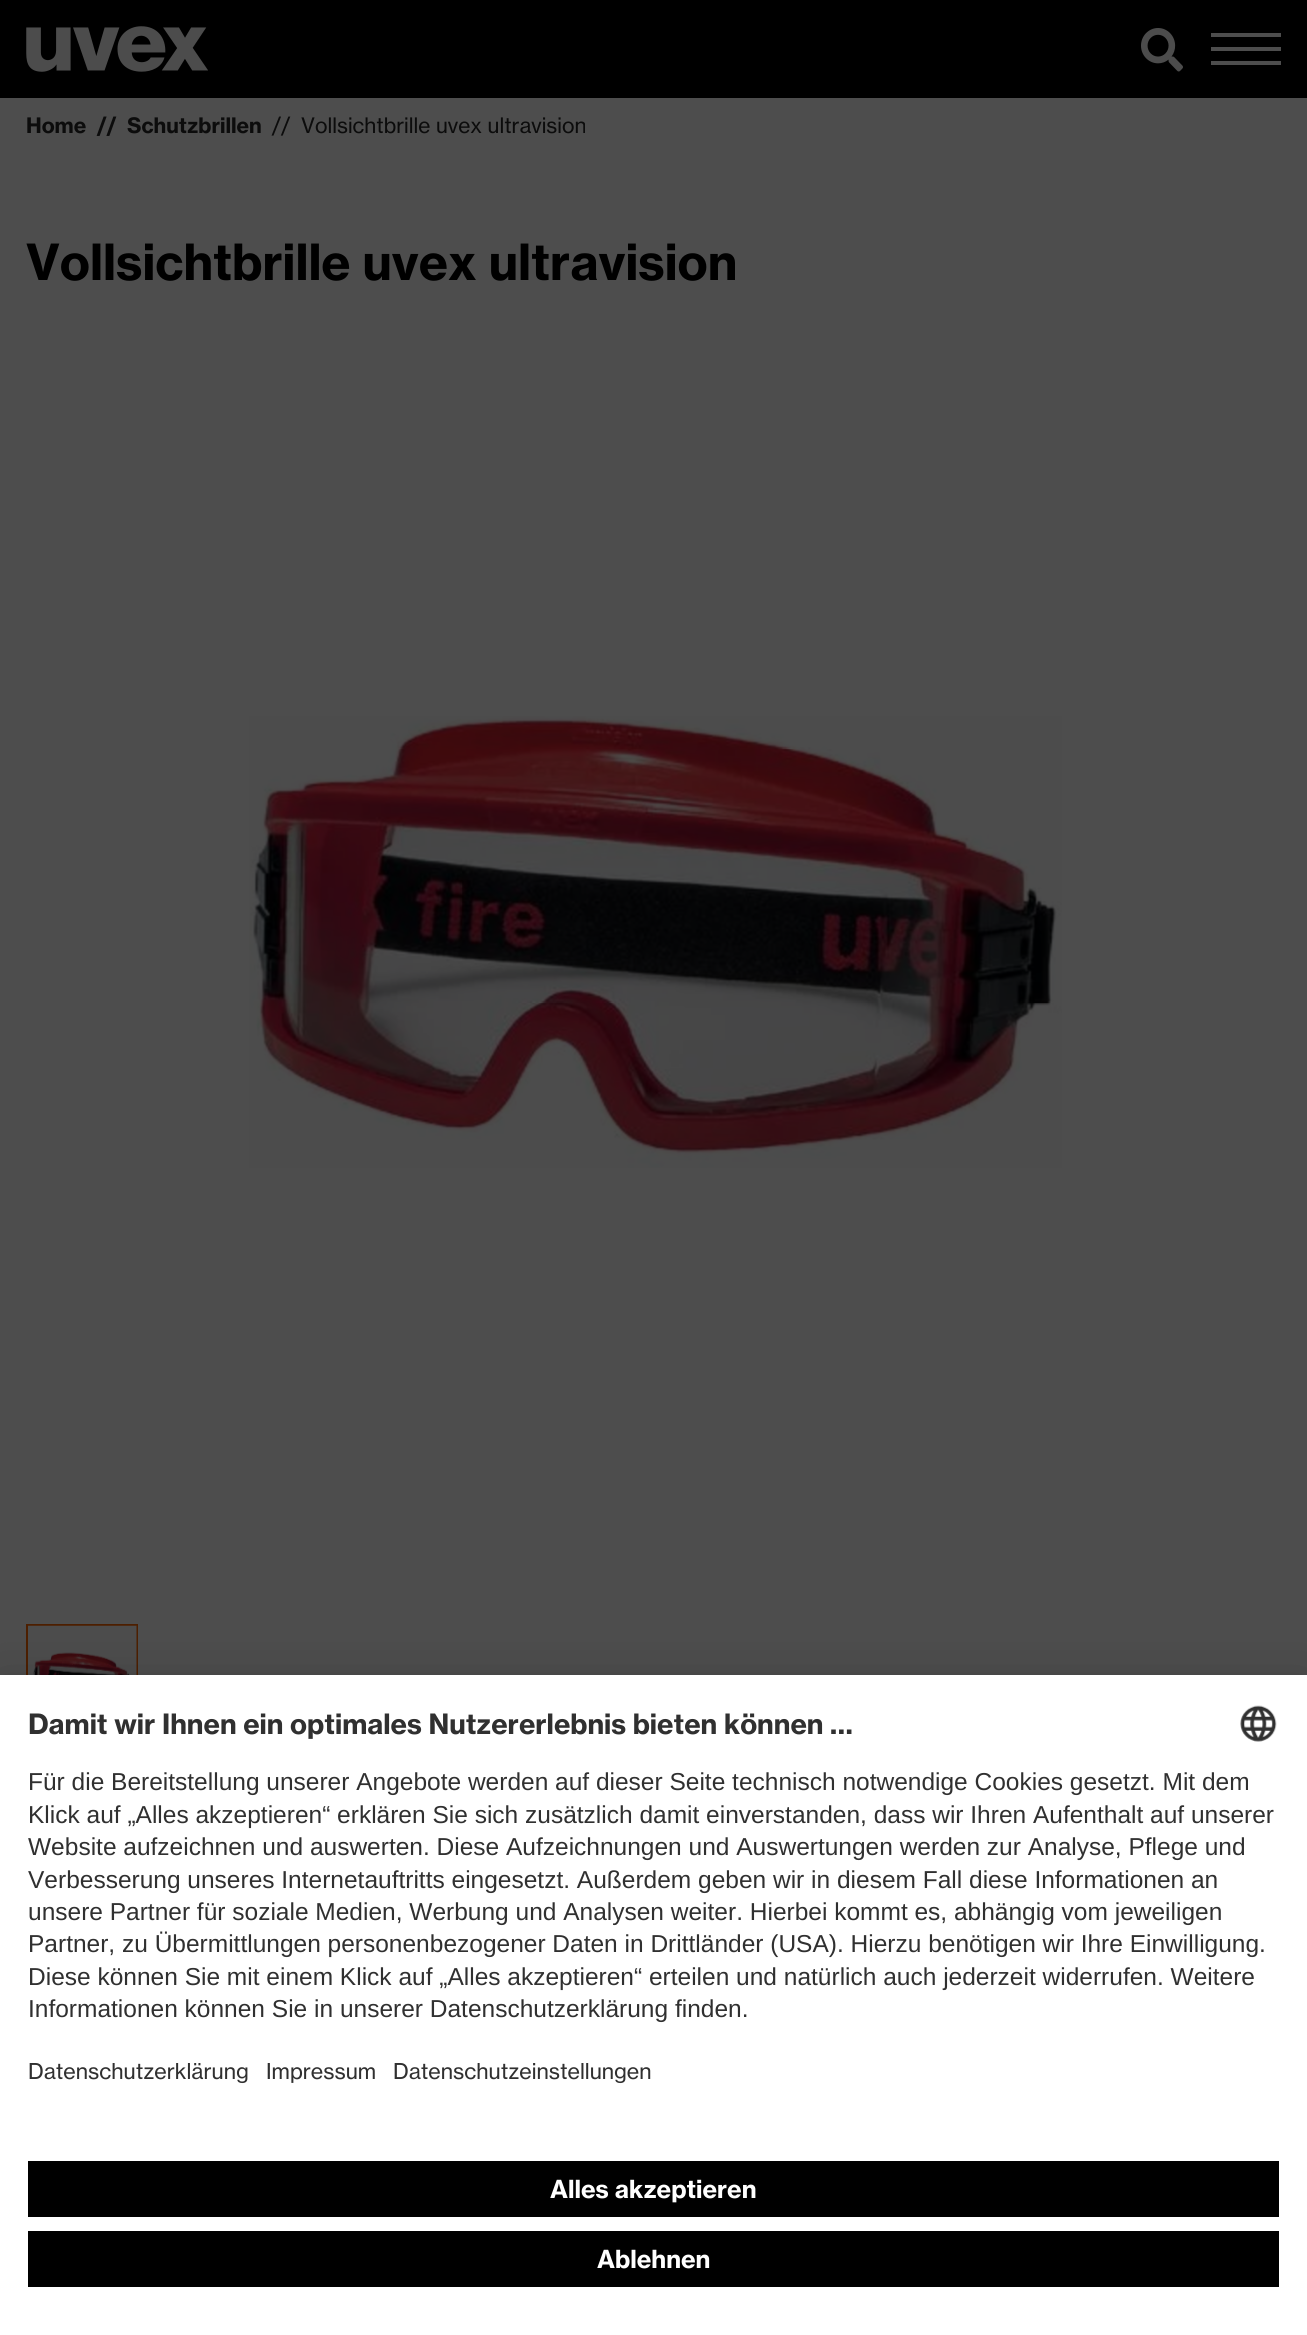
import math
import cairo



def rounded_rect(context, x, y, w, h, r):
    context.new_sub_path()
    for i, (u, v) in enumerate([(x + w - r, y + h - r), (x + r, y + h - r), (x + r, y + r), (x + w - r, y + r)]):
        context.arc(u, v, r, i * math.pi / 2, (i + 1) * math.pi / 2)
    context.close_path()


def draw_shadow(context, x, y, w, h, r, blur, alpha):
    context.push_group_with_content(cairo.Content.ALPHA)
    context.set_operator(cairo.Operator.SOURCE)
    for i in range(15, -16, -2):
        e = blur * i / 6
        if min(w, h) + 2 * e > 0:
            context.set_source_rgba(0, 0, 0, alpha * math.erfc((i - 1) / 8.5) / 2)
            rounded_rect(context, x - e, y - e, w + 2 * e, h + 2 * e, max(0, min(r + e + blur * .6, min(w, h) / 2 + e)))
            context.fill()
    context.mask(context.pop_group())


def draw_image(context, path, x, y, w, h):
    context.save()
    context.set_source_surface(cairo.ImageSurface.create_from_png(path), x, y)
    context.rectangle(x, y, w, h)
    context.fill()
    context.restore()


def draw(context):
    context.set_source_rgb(77 / 255, 77 / 255, 77 / 255)
    context.paint()
    context.set_source_rgb(0, 0, 0)
    context.rectangle(0, 0, 1307, 98)
    context.fill()
    draw_image(context, "images/1.png", 26, 26, 182, 46)
    draw_image(context, "images/2.png", 1141, 28, 42, 44)
    context.set_source_rgb(77 / 255, 77 / 255, 77 / 255)
    context.rectangle(1211, 47, 70, 4)
    context.fill()
    context.rectangle(1211, 33, 70, 4)
    context.fill()
    context.rectangle(1211, 61, 70, 4)
    context.fill()
    draw_image(context, "images/3.png", 249, 716, 813, 452)
    context.rectangle(27, 1625, 110, 110)
    context.set_source_rgb(77 / 255, 31 / 255, 0)
    context.stroke()
    draw_image(context, "images/4.png", 28, 1625, 109, 50)
    context.set_source_rgb(0, 0, 0)
    draw_shadow(context, 0, 1684, 1307, 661, 0, 23, 0.22)
    context.set_source_rgb(1, 1, 1)
    context.rectangle(0, 1675, 1307, 660)
    context.fill()
    draw_image(context, "images/5.png", 1240, 1705, 37, 37)
    context.set_source_rgb(0, 0, 0)
    context.rectangle(28, 2161, 1251, 56)
    context.fill()
    context.rectangle(28, 2231, 1251, 56)
    context.fill()
    context.select_font_face("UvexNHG", cairo.FontSlant.NORMAL, cairo.FontWeight.BOLD)
    context.set_font_size(21)
    context.set_source_rgb(12 / 255, 12 / 255, 12 / 255)
    context.move_to(26, 133)
    context.show_text("Home")
    context.move_to(97, 133)
    context.show_text("//")
    context.move_to(127, 133)
    context.show_text("Schutzbrillen")
    context.select_font_face("UvexNHG")
    context.move_to(272, 133)
    context.show_text("//")
    context.move_to(301, 133)
    context.show_text("Vollsichtbrille uvex ultravision")
    context.select_font_face("UvexNHG", cairo.FontSlant.NORMAL, cairo.FontWeight.BOLD)
    context.set_font_size(49)
    context.set_source_rgb(0, 0, 0)
    context.move_to(26, 280)
    context.show_text("Vollsichtbrille uvex ultravision")
    context.set_font_size(27.55)
    context.set_source_rgb(48 / 255, 48 / 255, 48 / 255)
    context.move_to(28, 1734)
    context.show_text("Damit wir Ihnen ein optimales Nutzererlebnis bieten können …")
    context.select_font_face("Liberation Sans")
    context.set_font_size(24.5)
    context.move_to(28, 1790)
    context.show_text("Für die Bereitstellung unserer Angebote werden auf dieser Seite technisch notwendige Cookies gesetzt. Mit dem")
    context.move_to(28, 1823)
    context.show_text("Klick auf „Alles akzeptieren“ erklären Sie sich zusätzlich damit einverstanden, dass wir Ihren Aufenthalt auf unserer")
    context.move_to(28, 1855)
    context.show_text("Website aufzeichnen und auswerten. Diese Aufzeichnungen und Auswertungen werden zur Analyse, Pflege und")
    context.move_to(28, 1888)
    context.show_text("Verbesserung unseres Internetauftritts eingesetzt. Außerdem geben wir in diesem Fall diese Informationen an")
    context.move_to(28, 1920)
    context.show_text("unsere Partner für soziale Medien, Werbung und Analysen weiter. Hierbei kommt es, abhängig vom jeweiligen")
    context.move_to(28, 1952)
    context.show_text("Partner, zu Übermittlungen personenbezogener Daten in Drittländer (USA). Hierzu benötigen wir Ihre Einwilligung.")
    context.move_to(28, 1985)
    context.show_text("Diese können Sie mit einem Klick auf „Alles akzeptieren“ erteilen und natürlich auch jederzeit widerrufen. Weitere")
    context.move_to(28, 2017)
    context.show_text("Informationen können Sie in unserer Datenschutzerklärung finden.")
    context.select_font_face("UvexNHG")
    context.set_font_size(21.5)
    context.move_to(28, 2079)
    context.show_text("Datenschutzerklärung")
    context.move_to(266, 2079)
    context.show_text("Impressum")
    context.move_to(393, 2079)
    context.show_text("Datenschutzeinstellungen")
    context.select_font_face("UvexNHG", cairo.FontSlant.NORMAL, cairo.FontWeight.BOLD)
    context.set_font_size(24.5)
    context.set_source_rgb(1, 1, 1)
    context.move_to(550, 2198)
    context.show_text("Alles akzeptieren")
    context.move_to(597, 2268)
    context.show_text("Ablehnen")


surface = cairo.ImageSurface(cairo.Format.RGB24, 1307, 2335)
context = cairo.Context(surface)
options = cairo.FontOptions()
options.set_hint_metrics(cairo.HintMetrics.OFF)
options.set_hint_style(cairo.HintStyle.NONE)
context.set_font_options(options)
context.set_miter_limit(4)
draw(context)
surface.write_to_png("out.png")
